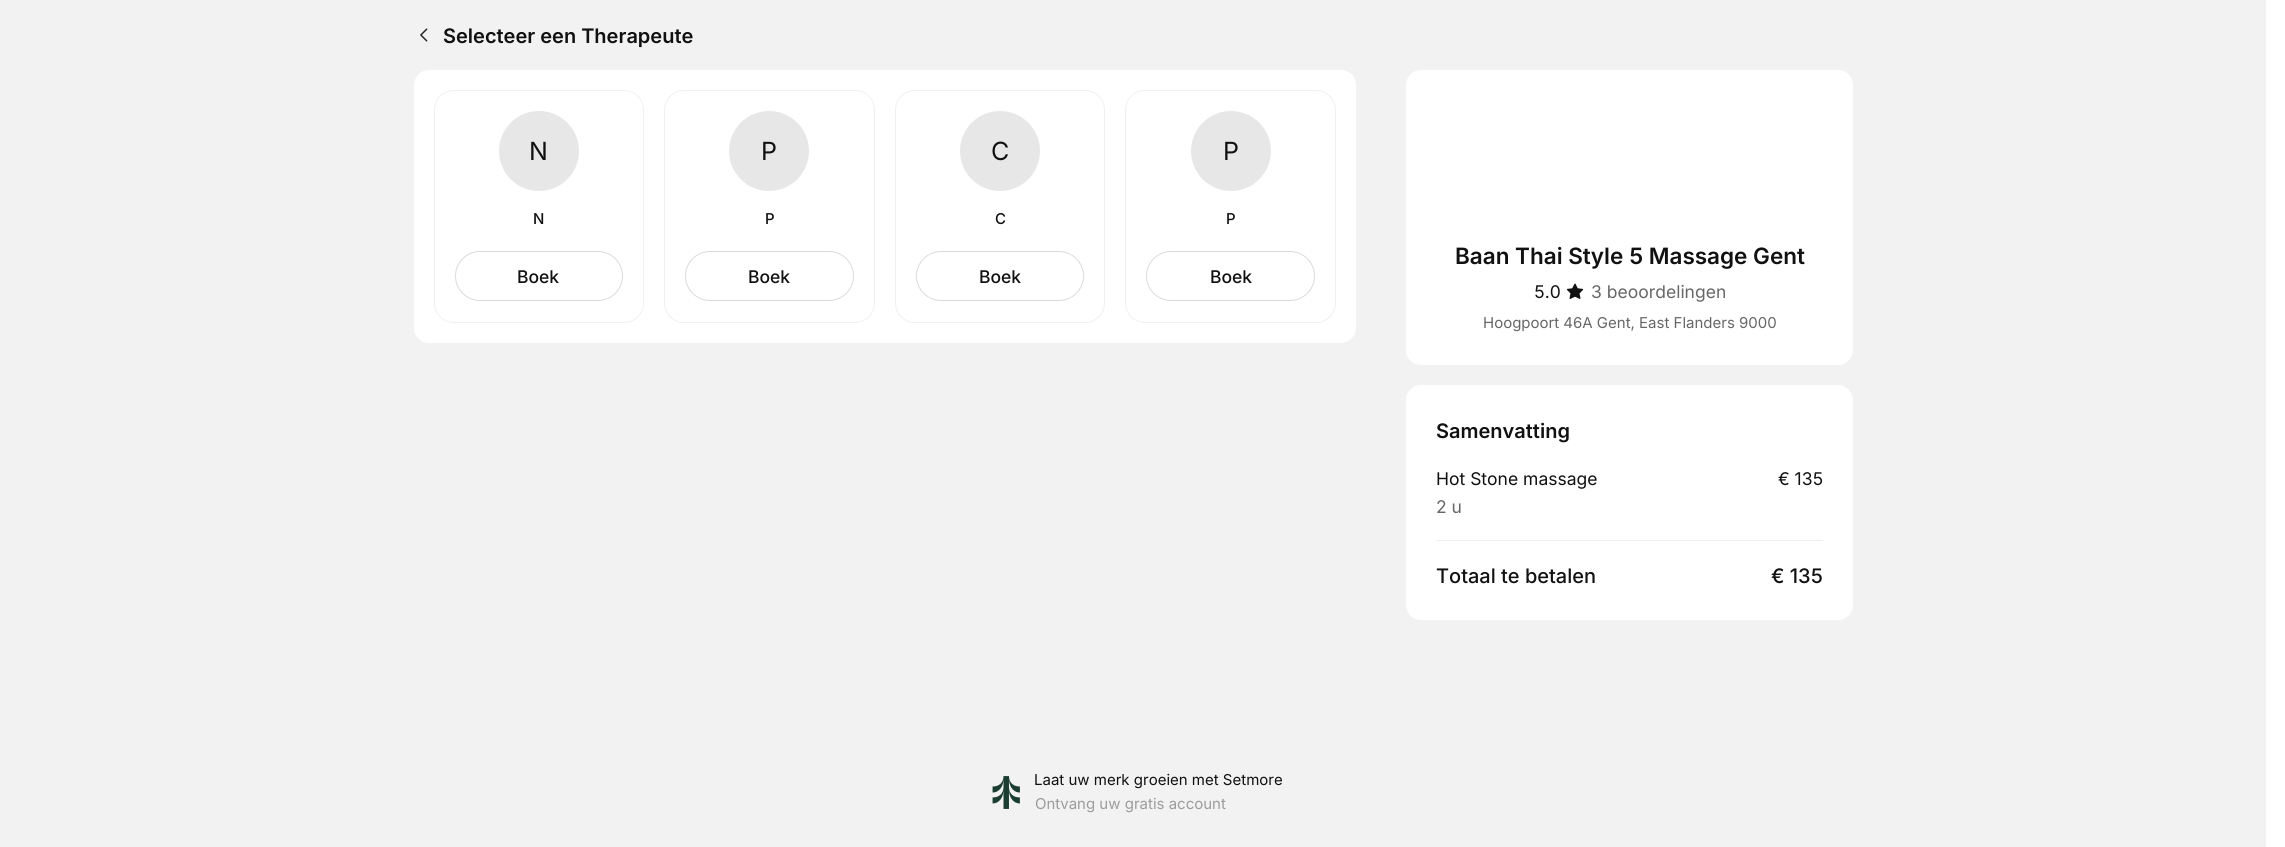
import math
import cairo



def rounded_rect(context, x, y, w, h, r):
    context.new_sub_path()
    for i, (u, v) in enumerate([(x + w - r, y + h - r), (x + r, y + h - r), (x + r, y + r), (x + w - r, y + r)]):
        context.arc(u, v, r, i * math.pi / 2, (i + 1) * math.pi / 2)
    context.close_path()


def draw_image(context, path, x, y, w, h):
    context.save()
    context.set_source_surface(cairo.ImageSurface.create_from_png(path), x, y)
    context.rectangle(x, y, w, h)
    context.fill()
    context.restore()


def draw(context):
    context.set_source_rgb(1, 1, 1)
    context.paint()
    context.set_source_rgb(242 / 255, 242 / 255, 242 / 255)
    context.rectangle(0, 0, 2266, 847)
    context.fill()
    draw_image(context, "images/1.png", 420, 28, 8, 14)
    context.set_source_rgb(1, 1, 1)
    rounded_rect(context, 414, 70, 942, 273, 15)
    context.fill()
    rounded_rect(context, 434.5, 90.5, 209, 232, 19.5)
    context.set_source_rgb(240 / 255, 240 / 255, 240 / 255)
    context.set_line_width(1)
    context.stroke()
    context.set_source_rgb(231 / 255, 231 / 255, 231 / 255)
    context.arc(539, 151, 40, 0, 2 * math.pi)
    context.fill()
    rounded_rect(context, 455.5, 251.5, 167, 49, 24.5)
    context.set_source_rgb(219 / 255, 219 / 255, 219 / 255)
    context.stroke()
    rounded_rect(context, 664.5, 90.5, 210, 232, 19.5)
    context.set_source_rgb(240 / 255, 240 / 255, 240 / 255)
    context.stroke()
    context.set_source_rgb(231 / 255, 231 / 255, 231 / 255)
    context.arc(769, 151, 40, 0, 2 * math.pi)
    context.fill()
    rounded_rect(context, 685.5, 251.5, 168, 49, 24.5)
    context.set_source_rgb(219 / 255, 219 / 255, 219 / 255)
    context.stroke()
    rounded_rect(context, 895.5, 90.5, 209, 232, 19.5)
    context.set_source_rgb(240 / 255, 240 / 255, 240 / 255)
    context.stroke()
    context.set_source_rgb(231 / 255, 231 / 255, 231 / 255)
    context.arc(1000, 151, 40, 0, 2 * math.pi)
    context.fill()
    rounded_rect(context, 916.5, 251.5, 167, 49, 24.5)
    context.set_source_rgb(219 / 255, 219 / 255, 219 / 255)
    context.stroke()
    rounded_rect(context, 1125.5, 90.5, 210, 232, 19.5)
    context.set_source_rgb(240 / 255, 240 / 255, 240 / 255)
    context.stroke()
    context.set_source_rgb(231 / 255, 231 / 255, 231 / 255)
    context.arc(1231, 151, 40, 0, 2 * math.pi)
    context.fill()
    rounded_rect(context, 1146.5, 251.5, 168, 49, 24.5)
    context.set_source_rgb(219 / 255, 219 / 255, 219 / 255)
    context.stroke()
    context.set_source_rgb(1, 1, 1)
    rounded_rect(context, 1406, 70, 447, 295, 15)
    context.fill()
    draw_image(context, "images/2.png", 1566, 283, 18, 16)
    rounded_rect(context, 1406, 385, 447, 235, 15)
    context.fill()
    context.set_source_rgb(240 / 255, 240 / 255, 240 / 255)
    context.rectangle(1436, 540, 387, 1)
    context.fill()
    draw_image(context, "images/3.png", 992, 776, 28, 33)
    context.select_font_face("Inter SemiBold")
    context.set_font_size(20)
    context.set_source_rgb(17 / 255, 17 / 255, 17 / 255)
    context.move_to(443, 43)
    context.show_text("Selecteer een Therapeute")
    context.select_font_face("Inter")
    context.set_font_size(25)
    context.move_to(529, 160)
    context.show_text("N")
    context.select_font_face("Inter Medium")
    context.set_font_size(15)
    context.move_to(533, 224)
    context.show_text("N")
    context.set_font_size(17.5)
    context.move_to(517, 283)
    context.show_text("Boek")
    context.select_font_face("Inter")
    context.set_font_size(25)
    context.move_to(761, 160)
    context.show_text("P")
    context.select_font_face("Inter Medium")
    context.set_font_size(15)
    context.move_to(765, 224)
    context.show_text("P")
    context.set_font_size(17.5)
    context.move_to(748, 283)
    context.show_text("Boek")
    context.select_font_face("Inter")
    context.set_font_size(25)
    context.move_to(991, 160)
    context.show_text("C")
    context.select_font_face("Inter Medium")
    context.set_font_size(15)
    context.move_to(995, 224)
    context.show_text("C")
    context.set_font_size(17.5)
    context.move_to(979, 283)
    context.show_text("Boek")
    context.select_font_face("Inter")
    context.set_font_size(25)
    context.move_to(1223, 160)
    context.show_text("P")
    context.select_font_face("Inter Medium")
    context.set_font_size(15)
    context.move_to(1226, 224)
    context.show_text("P")
    context.set_font_size(17.5)
    context.move_to(1210, 283)
    context.show_text("Boek")
    context.select_font_face("Inter SemiBold")
    context.set_font_size(22.5)
    context.move_to(1455, 264)
    context.show_text("Baan Thai Style 5 Massage Gent")
    context.select_font_face("Inter")
    context.set_font_size(17.5)
    context.move_to(1534, 298)
    context.show_text("5.0")
    context.set_source_rgb(103 / 255, 103 / 255, 103 / 255)
    context.move_to(1591, 298)
    context.show_text("3 beoordelingen")
    context.set_font_size(15)
    context.move_to(1483, 328)
    context.show_text("Hoogpoort 46A Gent, East Flanders 9000")
    context.select_font_face("Inter SemiBold")
    context.set_font_size(20)
    context.set_source_rgb(17 / 255, 17 / 255, 17 / 255)
    context.move_to(1436, 438)
    context.show_text("Samenvatting")
    context.select_font_face("Inter")
    context.set_font_size(17.5)
    context.move_to(1436, 485)
    context.show_text("Hot Stone massage")
    context.set_source_rgb(103 / 255, 103 / 255, 103 / 255)
    context.move_to(1436, 513)
    context.show_text("2 u")
    context.set_source_rgb(17 / 255, 17 / 255, 17 / 255)
    context.move_to(1778, 485)
    context.show_text("€ 135")
    context.select_font_face("Inter Medium")
    context.set_font_size(20)
    context.move_to(1436, 583)
    context.show_text("Totaal te betalen")
    context.move_to(1771, 583)
    context.show_text("€ 135")
    context.select_font_face("Inter")
    context.set_font_size(15)
    context.move_to(1034, 785)
    context.show_text("Laat uw merk groeien met Setmore")
    context.set_source_rgb(156 / 255, 156 / 255, 156 / 255)
    context.move_to(1035, 809)
    context.show_text("Ontvang uw gratis account")


surface = cairo.ImageSurface(cairo.Format.RGB24, 2285, 847)
context = cairo.Context(surface)
options = cairo.FontOptions()
options.set_hint_metrics(cairo.HintMetrics.OFF)
options.set_hint_style(cairo.HintStyle.NONE)
context.set_font_options(options)
context.set_miter_limit(4)
draw(context)
surface.write_to_png("out.png")
